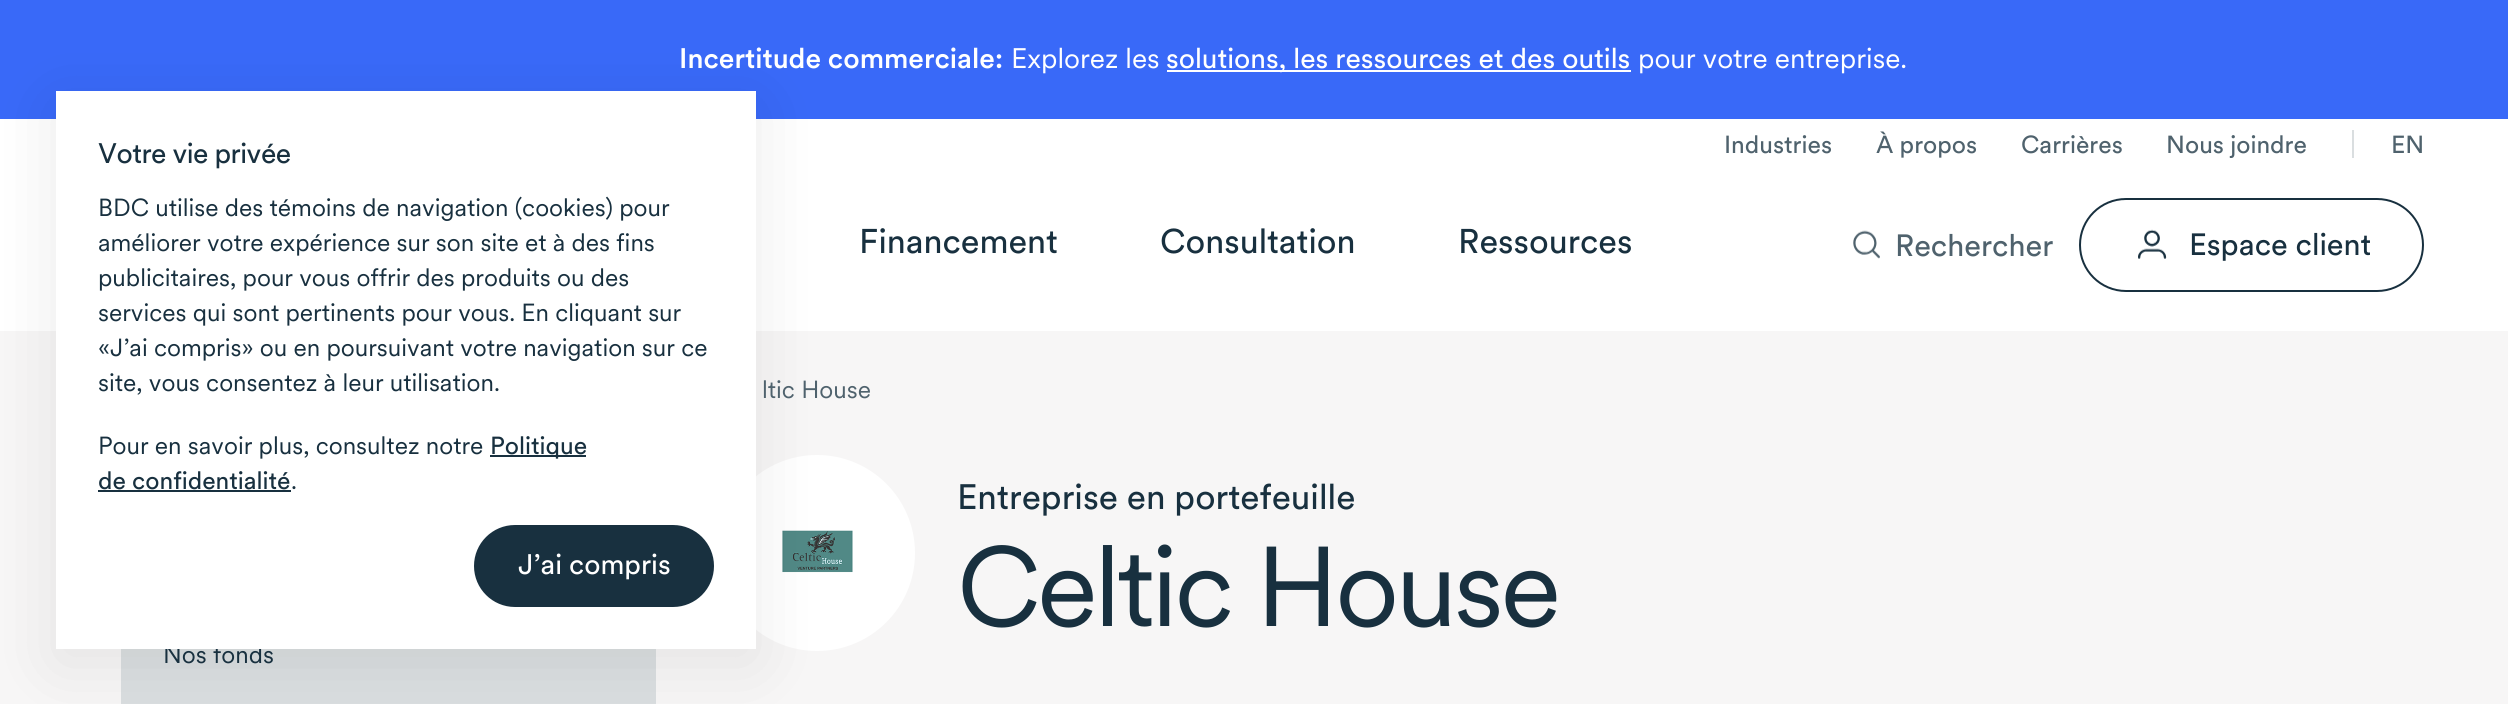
import math
import cairo



def draw_spaced(context, x, y, s, letter, word):
    context.move_to(x, y)
    for ch in s:
        context.show_text(ch)
        context.rel_move_to(letter + word * (ch == ' '), 0)


def rounded_rect(context, x, y, w, h, r):
    context.new_sub_path()
    for i, (u, v) in enumerate([(x + w - r, y + h - r), (x + r, y + h - r), (x + r, y + r), (x + w - r, y + r)]):
        context.arc(u, v, r, i * math.pi / 2, (i + 1) * math.pi / 2)
    context.close_path()


def draw_shadow(context, x, y, w, h, r, blur, alpha):
    context.push_group_with_content(cairo.Content.ALPHA)
    context.set_operator(cairo.Operator.SOURCE)
    for i in range(15, -16, -2):
        e = blur * i / 6
        if min(w, h) + 2 * e > 0:
            context.set_source_rgba(0, 0, 0, alpha * math.erfc((i - 1) / 8.5) / 2)
            rounded_rect(context, x - e, y - e, w + 2 * e, h + 2 * e, max(0, min(r + e + blur * .6, min(w, h) / 2 + e)))
            context.fill()
    context.mask(context.pop_group())


def draw_image(context, path, x, y, w, h):
    context.save()
    context.set_source_surface(cairo.ImageSurface.create_from_png(path), x, y)
    context.rectangle(x, y, w, h)
    context.fill()
    context.restore()


def draw(context):
    context.set_source_rgb(247 / 255, 246 / 255, 246 / 255)
    context.paint()
    context.set_source_rgb(57 / 255, 105 / 255, 248 / 255)
    context.rectangle(0, 0, 2508, 119)
    context.fill()
    context.set_source_rgb(1, 1, 1)
    context.rectangle(0, 119, 2508, 212)
    context.fill()
    context.arc(817, 553, 98, 0, 2 * math.pi)
    context.fill()
    draw_image(context, "images/3.png", 782, 530, 71, 43)
    context.set_source_rgb(218 / 255, 222 / 255, 224 / 255)
    context.rectangle(121, 649, 535, 55)
    context.fill()
    context.set_source_rgb(0, 0, 0)
    draw_shadow(context, 56, 105, 700, 558, 0, 35, 0.08)
    context.set_source_rgb(1, 1, 1)
    context.rectangle(1167, 70, 464, 2)
    context.fill()
    context.set_source_rgb(218 / 255, 222 / 255, 224 / 255)
    context.rectangle(2352, 130, 2, 28)
    context.fill()
    draw_image(context, "images/1.png", 1853, 230, 27, 29)
    rounded_rect(context, 2080, 199, 343, 92, 46)
    context.set_source_rgb(24 / 255, 48 / 255, 63 / 255)
    context.stroke()
    draw_image(context, "images/2.png", 2138, 229, 29, 30)
    context.select_font_face("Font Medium")
    context.set_font_size(28)
    context.set_source_rgb(1, 1, 1)
    context.move_to(679, 68)
    context.show_text("Incertitude commerciale:")
    context.select_font_face("Font")
    context.move_to(1011, 68)
    context.show_text("Explorez les")
    context.select_font_face("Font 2")
    context.move_to(1166, 68)
    context.show_text("solutions, les ressources et des outils")
    context.select_font_face("Font")
    context.move_to(1638, 68)
    context.show_text("pour votre entreprise.")
    context.select_font_face("Font 2")
    context.set_font_size(24.5)
    context.set_source_rgb(79 / 255, 98 / 255, 109 / 255)
    context.move_to(1724, 153)
    context.show_text("Industries")
    context.move_to(1876, 153)
    context.show_text("À propos")
    context.move_to(2021, 153)
    context.show_text("Carrières")
    context.move_to(2166, 153)
    context.show_text("Nous joindre")
    context.move_to(2391, 153)
    context.show_text("EN")
    context.set_font_size(34)
    context.set_source_rgb(24 / 255, 48 / 255, 63 / 255)
    context.move_to(859, 253)
    context.show_text("Financement")
    context.move_to(1160, 253)
    context.show_text("Consultation")
    context.move_to(1458, 253)
    context.show_text("Ressources")
    context.set_font_size(30.5)
    context.set_source_rgb(79 / 255, 98 / 255, 109 / 255)
    context.move_to(1895, 256)
    context.show_text("Rechercher")
    context.set_source_rgb(24 / 255, 48 / 255, 63 / 255)
    context.move_to(2189, 255)
    context.show_text("Espace client")
    context.select_font_face("Font")
    context.set_font_size(24.5)
    context.set_source_rgb(79 / 255, 98 / 255, 109 / 255)
    context.move_to(762, 398)
    context.show_text("ltic House")
    context.select_font_face("Font 2")
    context.set_font_size(35)
    context.set_source_rgb(24 / 255, 48 / 255, 63 / 255)
    context.move_to(957, 509)
    context.show_text("Entreprise en portefeuille")
    context.select_font_face("Font")
    context.set_font_size(112)
    draw_spaced(context, 957, 626, "Celtic House", -3.5, 0)
    context.set_font_size(24.5)
    context.move_to(163, 663)
    context.show_text("Nos fonds")
    context.set_source_rgb(1, 1, 1)
    context.rectangle(56, 91, 700, 558)
    context.fill()
    context.set_source_rgb(24 / 255, 48 / 255, 63 / 255)
    rounded_rect(context, 475, 526, 238, 80, 40)
    context.fill_preserve()
    context.stroke()
    context.select_font_face("Font 2")
    context.set_font_size(28)
    context.set_source_rgb(1, 1, 1)
    context.move_to(518, 574)
    context.show_text("J’ai compris")
    context.select_font_face("Font")
    context.set_font_size(24.5)
    context.set_source_rgb(24 / 255, 48 / 255, 63 / 255)
    context.move_to(291, 489)
    context.show_text(".")
    context.select_font_face("Font 2")
    context.move_to(98, 489)
    context.show_text("de confidentialité")
    context.rectangle(98, 490, 193, 2)
    context.fill()
    context.rectangle(490, 455, 96, 2)
    context.fill()
    context.move_to(490, 454)
    context.show_text("Politique")
    context.select_font_face("Font")
    context.move_to(98, 454)
    context.show_text("Pour en savoir plus, consultez notre")
    context.move_to(98, 391)
    context.show_text("site, vous consentez à leur utilisation.")
    context.move_to(98, 356)
    context.show_text("«J’ai compris» ou en poursuivant votre navigation sur ce")
    context.move_to(98, 321)
    context.show_text("services qui sont pertinents pour vous. En cliquant sur")
    context.move_to(98, 286)
    context.show_text("publicitaires, pour vous offrir des produits ou des")
    context.move_to(98, 251)
    context.show_text("améliorer votre expérience sur son site et à des fins")
    context.move_to(98, 216)
    context.show_text("BDC utilise des témoins de navigation (cookies) pour")
    context.select_font_face("Font 2")
    context.set_font_size(28)
    draw_spaced(context, 98, 163, "Votre vie privée", -0.5, 0)


surface = cairo.ImageSurface(cairo.Format.RGB24, 2508, 704)
context = cairo.Context(surface)
options = cairo.FontOptions()
options.set_hint_metrics(cairo.HintMetrics.OFF)
options.set_hint_style(cairo.HintStyle.NONE)
context.set_font_options(options)
context.set_miter_limit(4)
draw(context)
surface.write_to_png("out.png")
